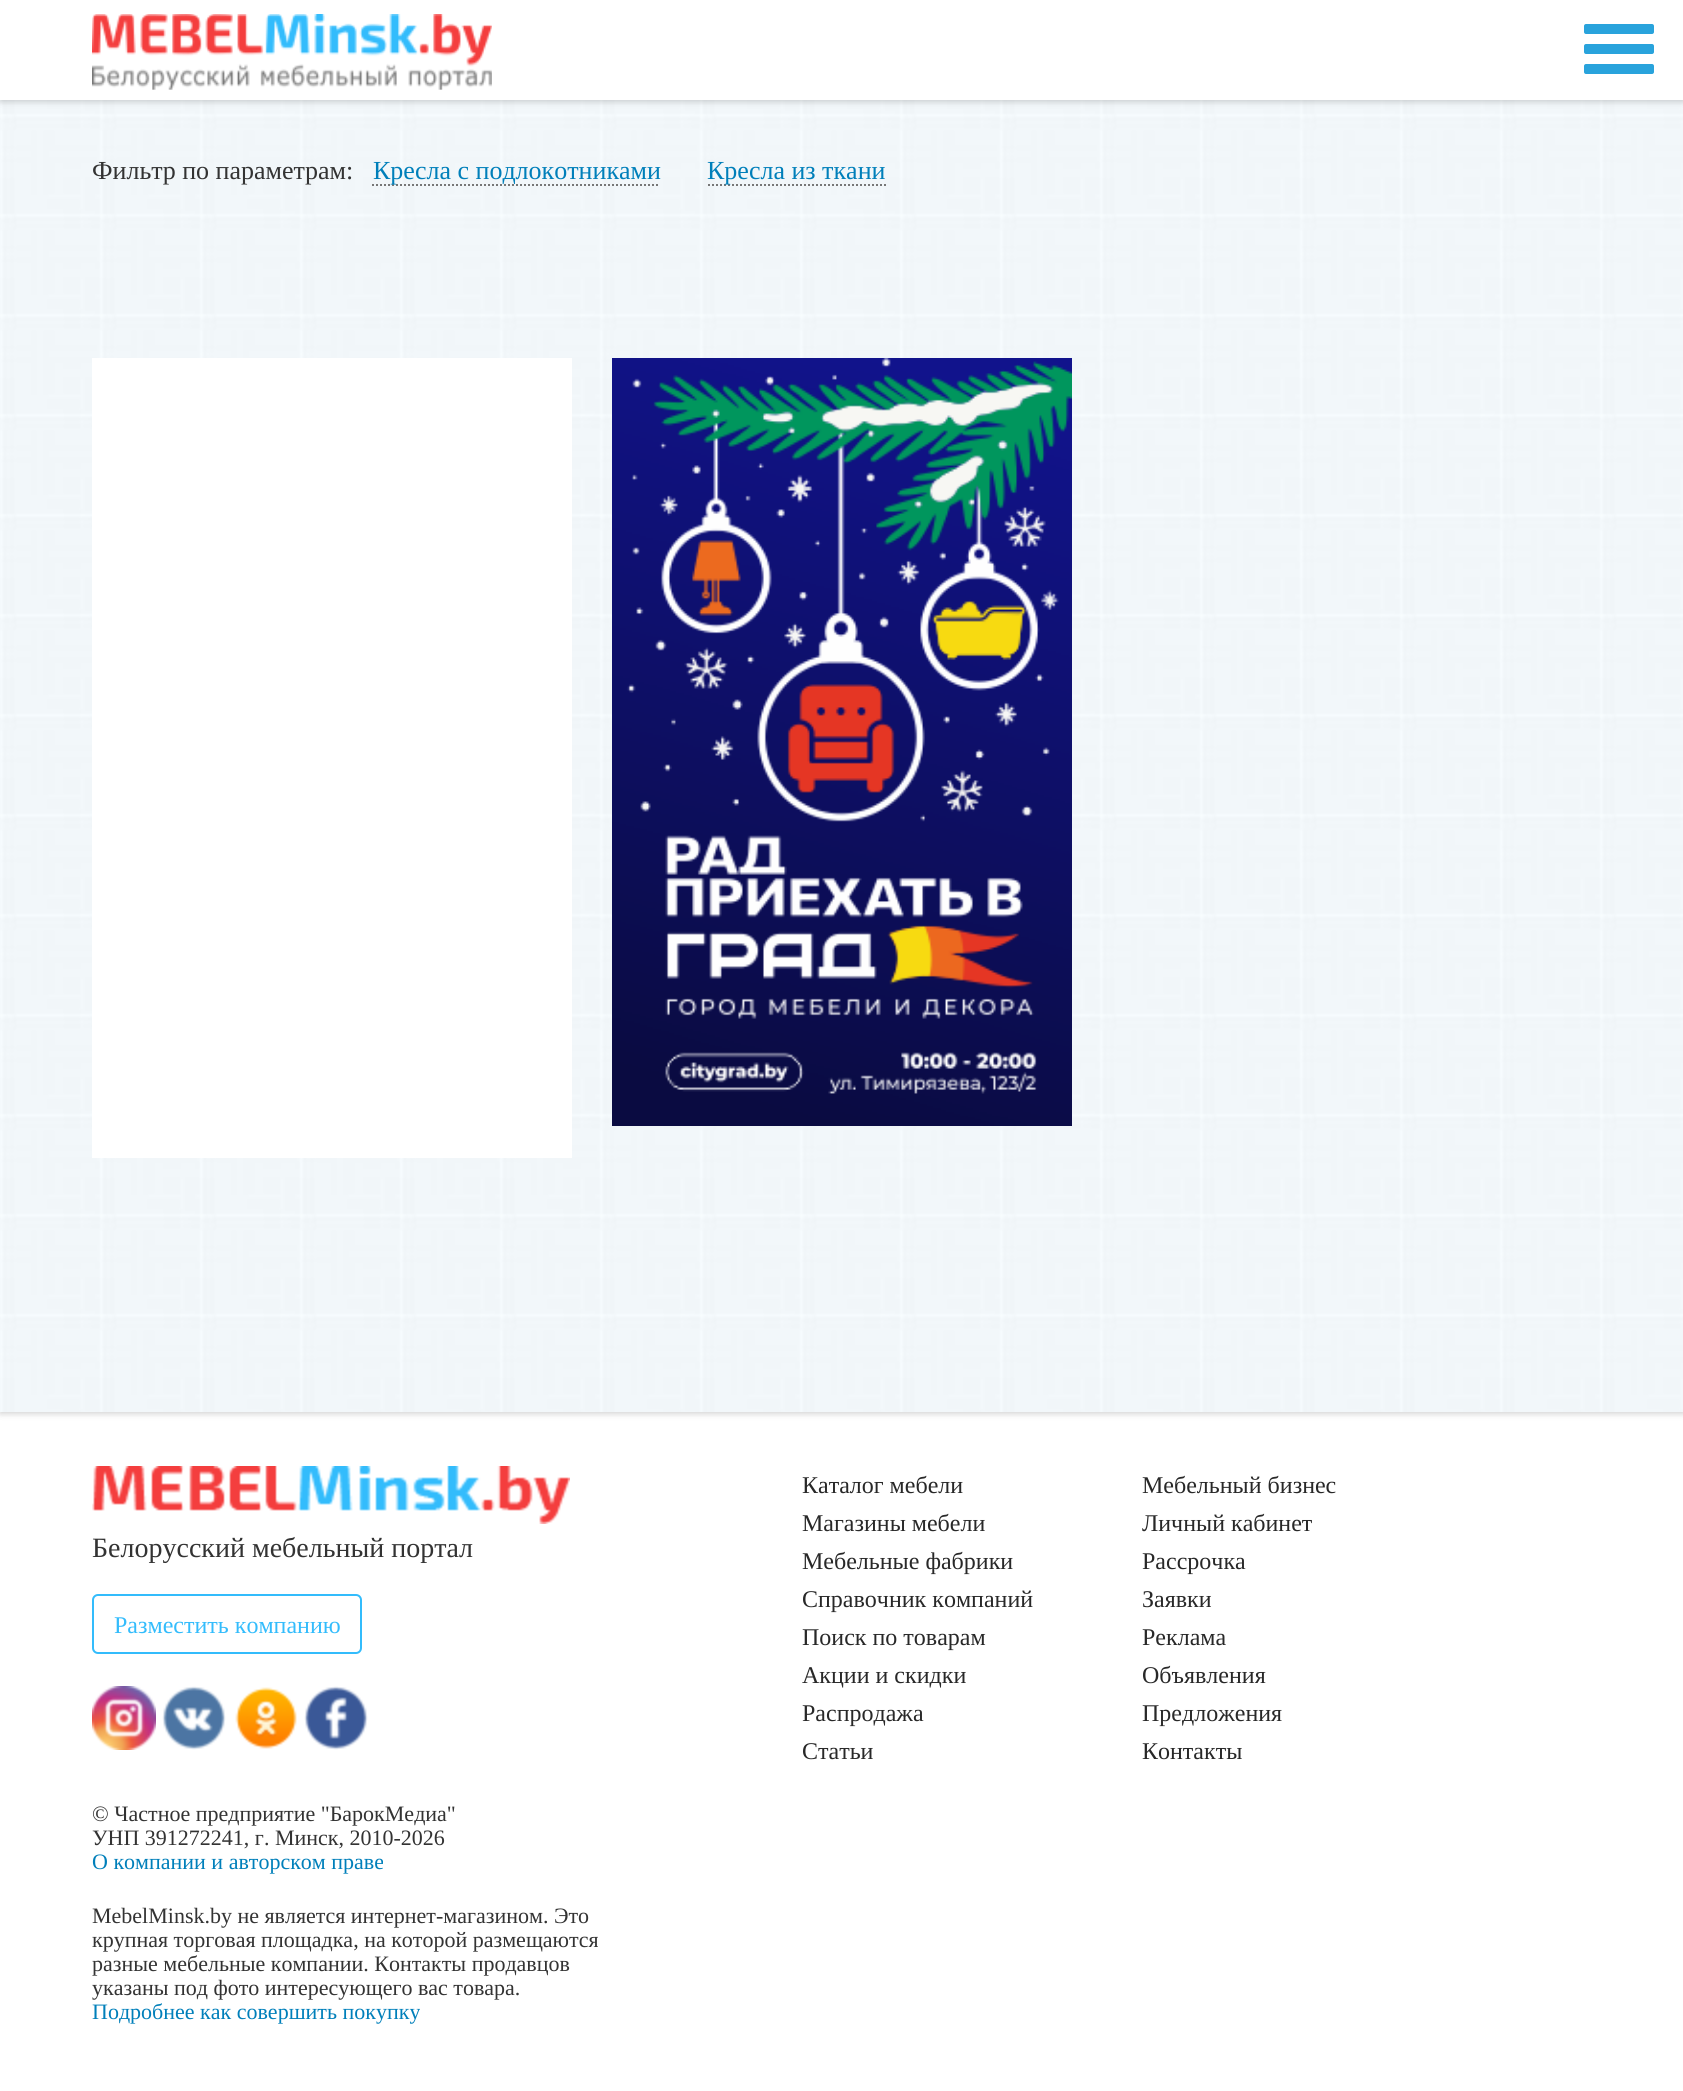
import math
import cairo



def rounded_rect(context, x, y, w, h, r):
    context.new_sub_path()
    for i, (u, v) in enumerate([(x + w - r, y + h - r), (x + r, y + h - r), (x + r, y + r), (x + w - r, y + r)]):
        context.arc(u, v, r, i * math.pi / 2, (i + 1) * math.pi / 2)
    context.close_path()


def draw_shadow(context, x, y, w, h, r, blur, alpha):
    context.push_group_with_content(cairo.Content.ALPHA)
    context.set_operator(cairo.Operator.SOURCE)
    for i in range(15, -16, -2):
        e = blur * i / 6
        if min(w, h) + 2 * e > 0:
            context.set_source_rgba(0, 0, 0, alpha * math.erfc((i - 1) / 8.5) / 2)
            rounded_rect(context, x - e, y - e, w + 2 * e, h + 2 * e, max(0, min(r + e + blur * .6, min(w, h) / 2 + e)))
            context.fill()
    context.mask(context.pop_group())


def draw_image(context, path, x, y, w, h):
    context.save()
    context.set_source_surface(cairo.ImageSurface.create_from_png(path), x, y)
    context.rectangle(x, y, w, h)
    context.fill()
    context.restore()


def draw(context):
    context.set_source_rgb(1, 1, 1)
    context.paint()
    context.set_source_rgb(0, 0, 0)
    draw_shadow(context, 0, -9, 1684, 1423, 0, 3, 0.17)
    draw_image(context, "images/2.png", 0, 100, 1683, 1312)
    draw_shadow(context, 0, 2, 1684, 100, 0, 3, 0.17)
    context.set_source_rgb(1, 1, 1)
    context.rectangle(0, 0, 1683, 100)
    context.fill()
    draw_image(context, "images/1.png", 92, 14, 400, 76)
    context.set_source_rgb(41 / 255, 163 / 255, 220 / 255)
    rounded_rect(context, 1584, 44, 70, 10, 2)
    context.fill()
    rounded_rect(context, 1584, 24, 70, 10, 2)
    context.fill()
    rounded_rect(context, 1584, 64, 70, 10, 2)
    context.fill()
    context.new_path()
    context.move_to(372, 185)
    context.line_to(660, 185)
    context.set_source_rgb(119 / 255, 119 / 255, 119 / 255)
    context.set_dash([2, 2])
    context.stroke()
    context.new_path()
    context.move_to(708, 185)
    context.line_to(886, 185)
    context.stroke()
    context.set_source_rgb(1, 1, 1)
    context.rectangle(92, 358, 480, 800)
    context.fill()
    draw_image(context, "images/3.png", 612, 358, 460, 768)
    draw_image(context, "images/4.png", 92, 1466, 478, 58)
    rounded_rect(context, 93, 1595, 268, 58, 5)
    context.set_source_rgb(51 / 255, 188 / 255, 252 / 255)
    context.set_dash([])
    context.stroke()
    draw_image(context, "images/5.png", 92, 1686, 64, 64)
    draw_image(context, "images/6.png", 162, 1686, 64, 64)
    draw_image(context, "images/7.png", 235, 1687, 62, 62)
    draw_image(context, "images/8.png", 304, 1686, 64, 64)
    context.select_font_face("Liberation Serif")
    context.set_font_size(26)
    context.set_source_rgb(51 / 255, 51 / 255, 51 / 255)
    context.move_to(92, 179)
    context.show_text("Фильтр по параметрам:")
    context.set_source_rgb(0, 127 / 255, 186 / 255)
    context.move_to(373, 179)
    context.show_text("Кресла с подлокотниками")
    context.move_to(707, 179)
    context.show_text("Кресла из ткани")
    context.set_font_size(28)
    context.set_source_rgb(51 / 255, 51 / 255, 51 / 255)
    context.move_to(92, 1557)
    context.show_text("Белорусский мебельный портал")
    context.set_font_size(24)
    context.set_source_rgb(51 / 255, 188 / 255, 252 / 255)
    context.move_to(114, 1633)
    context.show_text("Разместить компанию")
    context.set_source_rgb(40 / 255, 40 / 255, 40 / 255)
    context.move_to(802, 1493)
    context.show_text("Каталог мебели")
    context.move_to(802, 1531)
    context.show_text("Магазины мебели")
    context.move_to(802, 1569)
    context.show_text("Мебельные фабрики")
    context.move_to(802, 1607)
    context.show_text("Справочник компаний")
    context.move_to(802, 1645)
    context.show_text("Поиск по товарам")
    context.move_to(802, 1683)
    context.show_text("Акции и скидки")
    context.move_to(802, 1721)
    context.show_text("Распродажа")
    context.move_to(802, 1759)
    context.show_text("Статьи")
    context.move_to(1142, 1493)
    context.show_text("Мебельный бизнес")
    context.move_to(1142, 1531)
    context.show_text("Личный кабинет")
    context.move_to(1142, 1569)
    context.show_text("Рассрочка")
    context.move_to(1142, 1607)
    context.show_text("Заявки")
    context.move_to(1142, 1645)
    context.show_text("Реклама")
    context.move_to(1142, 1683)
    context.show_text("Объявления")
    context.move_to(1142, 1721)
    context.show_text("Предложения")
    context.move_to(1142, 1759)
    context.show_text("Контакты")
    context.set_font_size(22)
    context.set_source_rgb(51 / 255, 51 / 255, 51 / 255)
    context.move_to(92, 1821)
    context.show_text("© Частное предприятие \"БарокМедиа\"")
    context.move_to(92, 1845)
    context.show_text("УНП 391272241, г. Минск, 2010-2026")
    context.set_source_rgb(0, 127 / 255, 186 / 255)
    context.move_to(92, 1869)
    context.show_text("О компании и авторском праве")
    context.set_source_rgb(51 / 255, 51 / 255, 51 / 255)
    context.move_to(92, 1923)
    context.show_text("MebelMinsk.by не является интернет-магазином. Это")
    context.move_to(92, 1947)
    context.show_text("крупная торговая площадка, на которой размещаются")
    context.move_to(92, 1971)
    context.show_text("разные мебельные компании. Контакты продавцов")
    context.move_to(92, 1995)
    context.show_text("указаны под фото интересующего вас товара.")
    context.set_source_rgb(0, 127 / 255, 186 / 255)
    context.move_to(92, 2019)
    context.show_text("Подробнее как совершить покупку")


surface = cairo.ImageSurface(cairo.Format.RGB24, 1683, 2091)
context = cairo.Context(surface)
options = cairo.FontOptions()
options.set_hint_metrics(cairo.HintMetrics.OFF)
options.set_hint_style(cairo.HintStyle.NONE)
context.set_font_options(options)
context.set_miter_limit(4)
draw(context)
surface.write_to_png("out.png")
